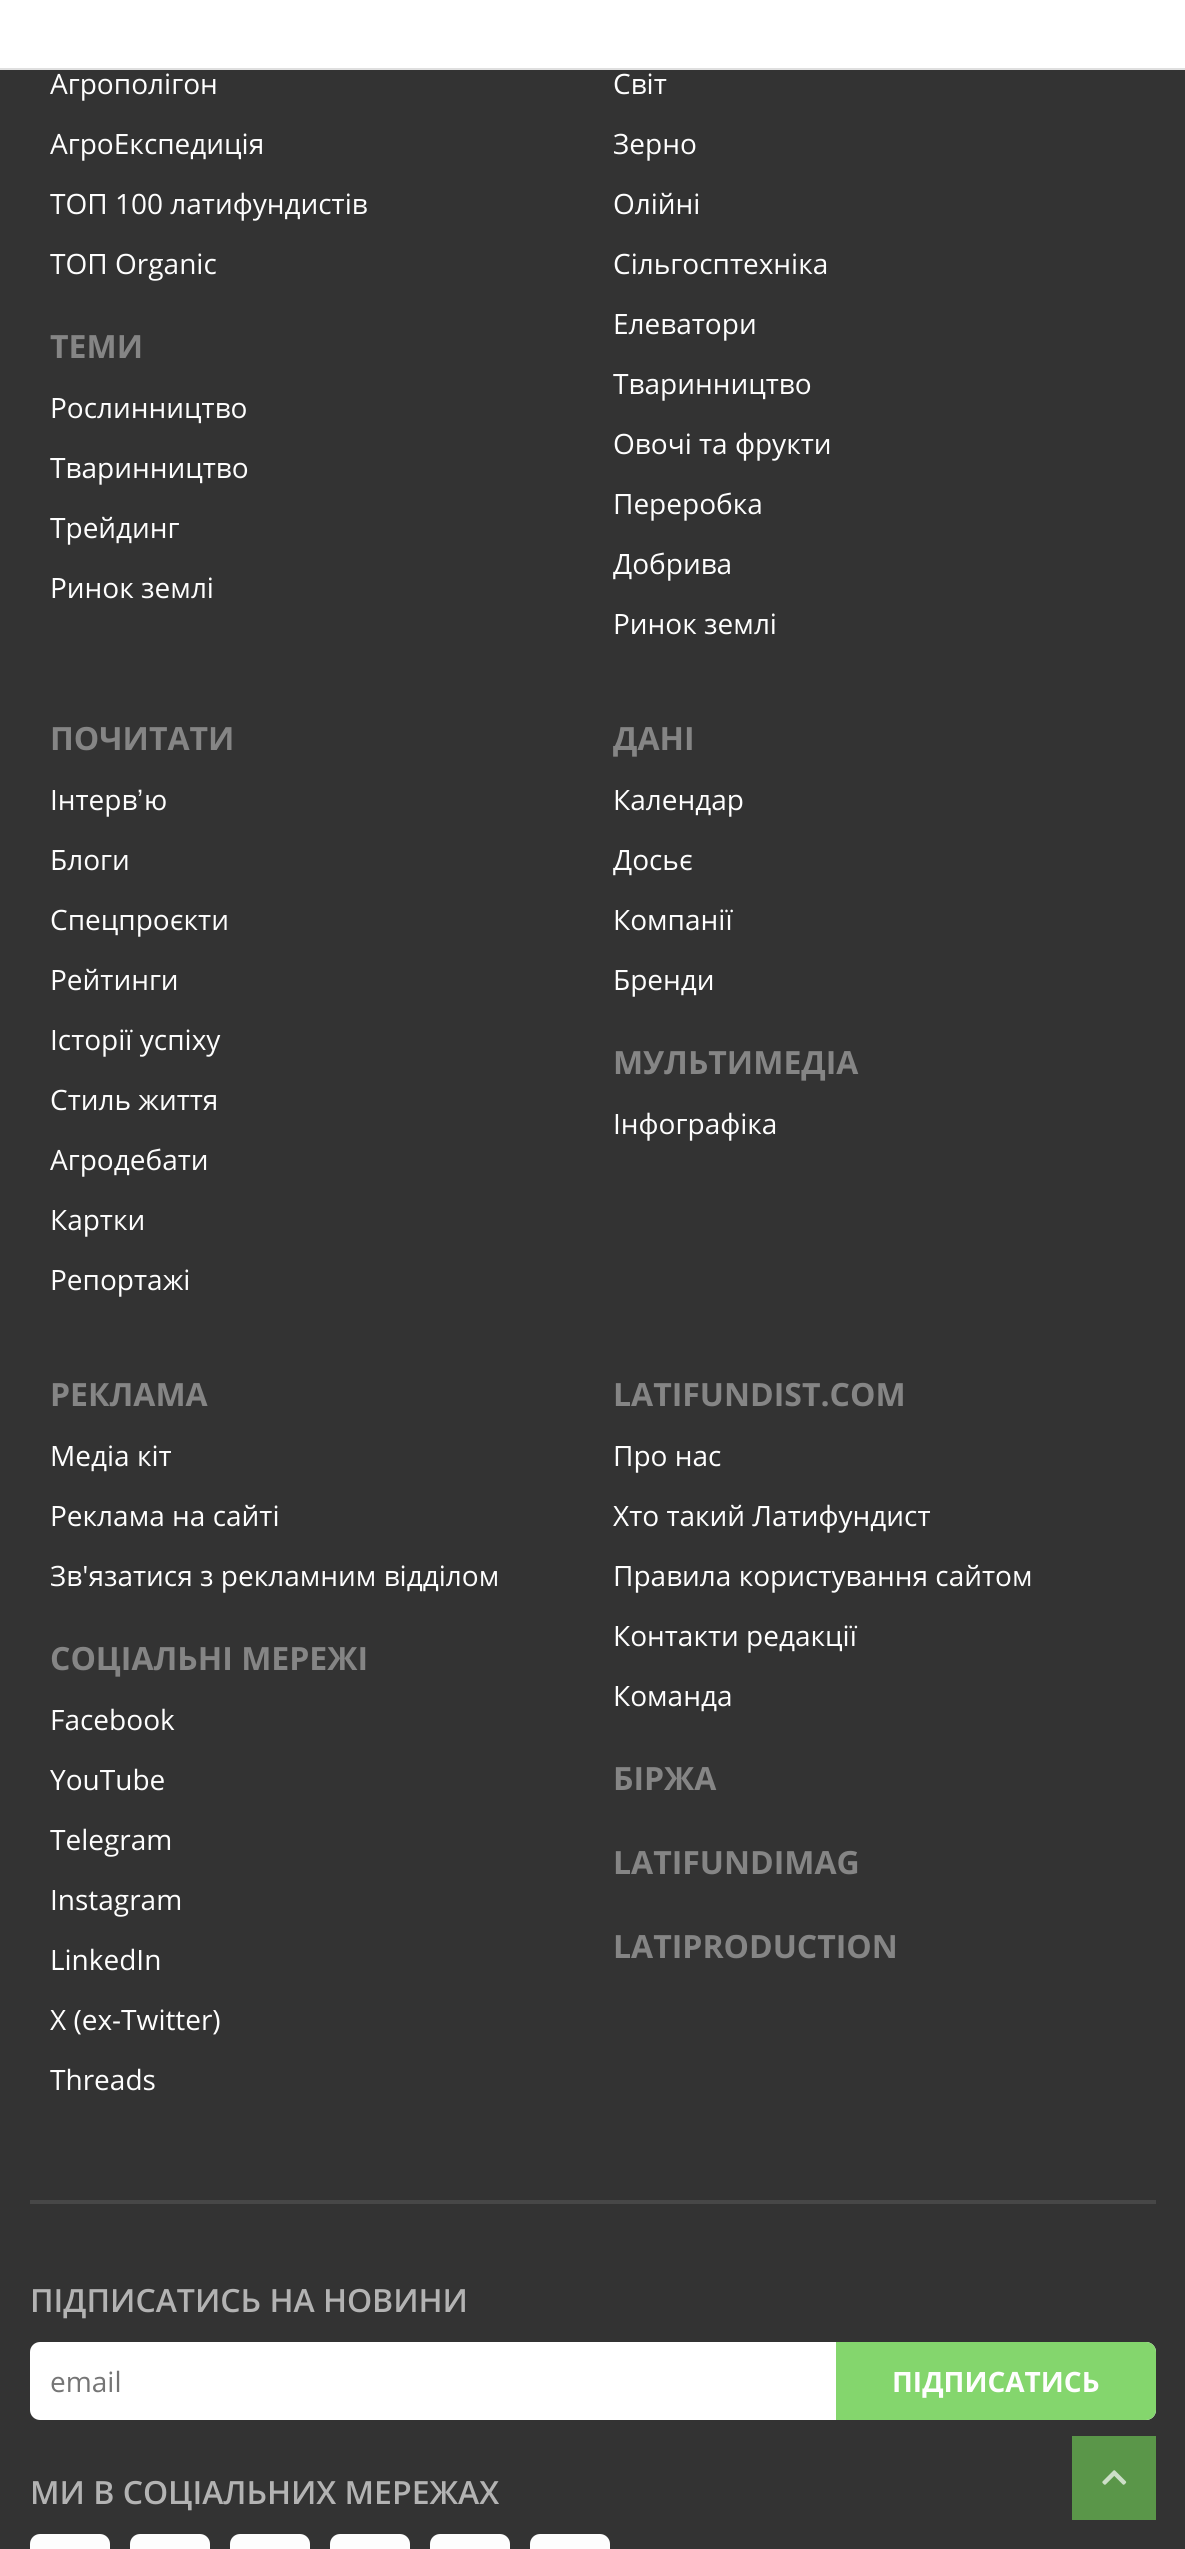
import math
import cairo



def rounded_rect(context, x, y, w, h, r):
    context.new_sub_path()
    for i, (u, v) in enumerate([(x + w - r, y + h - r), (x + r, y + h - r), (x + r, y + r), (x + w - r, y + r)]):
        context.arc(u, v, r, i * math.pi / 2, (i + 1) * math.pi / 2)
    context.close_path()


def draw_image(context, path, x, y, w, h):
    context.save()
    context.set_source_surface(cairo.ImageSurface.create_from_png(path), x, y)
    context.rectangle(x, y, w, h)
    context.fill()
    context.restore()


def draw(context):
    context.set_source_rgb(51 / 255, 51 / 255, 51 / 255)
    context.paint()
    context.set_source_rgb(1, 1, 1)
    context.rectangle(0, 0, 1185, 68)
    context.fill()
    context.set_source_rgb(223 / 255, 223 / 255, 223 / 255)
    context.rectangle(0, 68, 1185, 2)
    context.fill()
    context.set_source_rgb(71 / 255, 71 / 255, 71 / 255)
    context.rectangle(30, 2200, 1126, 4)
    context.fill()
    context.set_source_rgb(1, 1, 1)
    rounded_rect(context, 30, 2342, 1126, 78, 10)
    context.fill()
    context.set_source_rgb(132 / 255, 214 / 255, 109 / 255)
    context.new_path()
    context.move_to(836, 2342)
    context.line_to(1146, 2342)
    context.curve_to(1151.5, 2342, 1156, 2346.5, 1156, 2352)
    context.line_to(1156, 2410)
    context.curve_to(1156, 2415.5, 1151.5, 2420, 1146, 2420)
    context.line_to(836, 2420)
    context.close_path()
    context.fill()
    context.set_source_rgb(253 / 255, 253 / 255, 253 / 255)
    rounded_rect(context, 30, 2534, 80, 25, 10)
    context.fill()
    rounded_rect(context, 130, 2534, 80, 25, 10)
    context.fill()
    rounded_rect(context, 230, 2534, 80, 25, 10)
    context.fill()
    rounded_rect(context, 330, 2534, 80, 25, 10)
    context.fill()
    rounded_rect(context, 430, 2534, 80, 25, 10)
    context.fill()
    rounded_rect(context, 530, 2534, 80, 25, 10)
    context.fill()
    context.set_source_rgb(90 / 255, 150 / 255, 73 / 255)
    context.rectangle(1072, 2436, 84, 84)
    context.fill()
    draw_image(context, "images/1.png", 1102, 2470, 25, 15)
    context.select_font_face("Open Sans")
    context.set_font_size(28)
    context.set_source_rgb(254 / 255, 254 / 255, 254 / 255)
    context.move_to(50, 94)
    context.show_text("Агрополігон")
    context.move_to(50, 154)
    context.show_text("АгроЕкспедиція")
    context.move_to(50, 214)
    context.show_text("ТОП 100 латифундистів")
    context.move_to(50, 274)
    context.show_text("ТОП Organic")
    context.select_font_face("Open Sans", cairo.FontSlant.NORMAL, cairo.FontWeight.BOLD)
    context.set_font_size(32)
    context.set_source_rgb(133 / 255, 133 / 255, 133 / 255)
    context.move_to(50, 358)
    context.show_text("ТЕМИ")
    context.select_font_face("Open Sans")
    context.set_font_size(28)
    context.set_source_rgb(254 / 255, 254 / 255, 254 / 255)
    context.move_to(50, 418)
    context.show_text("Рослинництво")
    context.move_to(50, 478)
    context.show_text("Тваринництво")
    context.move_to(50, 538)
    context.show_text("Трейдинг")
    context.move_to(50, 598)
    context.show_text("Ринок землі")
    context.move_to(613, 94)
    context.show_text("Світ")
    context.move_to(613, 154)
    context.show_text("Зерно")
    context.move_to(613, 214)
    context.show_text("Олійні")
    context.move_to(613, 274)
    context.show_text("Сільгосптехніка")
    context.move_to(613, 334)
    context.show_text("Елеватори")
    context.move_to(613, 394)
    context.show_text("Тваринництво")
    context.move_to(613, 454)
    context.show_text("Овочі та фрукти")
    context.move_to(613, 514)
    context.show_text("Переробка")
    context.move_to(613, 574)
    context.show_text("Добрива")
    context.move_to(613, 634)
    context.show_text("Ринок землі")
    context.select_font_face("Open Sans", cairo.FontSlant.NORMAL, cairo.FontWeight.BOLD)
    context.set_font_size(32)
    context.set_source_rgb(133 / 255, 133 / 255, 133 / 255)
    context.move_to(50, 750)
    context.show_text("ПОЧИТАТИ")
    context.select_font_face("Open Sans")
    context.set_font_size(28)
    context.set_source_rgb(254 / 255, 254 / 255, 254 / 255)
    context.move_to(50, 810)
    context.show_text("Інтерв")
    context.select_font_face("Liberation Sans")
    context.move_to(137, 810)
    context.show_text("ʼ")
    context.select_font_face("Open Sans")
    context.move_to(144, 810)
    context.show_text("ю")
    context.move_to(50, 870)
    context.show_text("Блоги")
    context.move_to(50, 930)
    context.show_text("Спецпроєкти")
    context.move_to(50, 990)
    context.show_text("Рейтинги")
    context.move_to(50, 1050)
    context.show_text("Історії успіху")
    context.move_to(50, 1110)
    context.show_text("Стиль життя")
    context.move_to(50, 1170)
    context.show_text("Агродебати")
    context.move_to(50, 1230)
    context.show_text("Картки")
    context.move_to(50, 1290)
    context.show_text("Репортажі")
    context.select_font_face("Open Sans", cairo.FontSlant.NORMAL, cairo.FontWeight.BOLD)
    context.set_font_size(32)
    context.set_source_rgb(133 / 255, 133 / 255, 133 / 255)
    context.move_to(613, 750)
    context.show_text("ДАНІ")
    context.select_font_face("Open Sans")
    context.set_font_size(28)
    context.set_source_rgb(254 / 255, 254 / 255, 254 / 255)
    context.move_to(613, 810)
    context.show_text("Календар")
    context.move_to(613, 870)
    context.show_text("Досьє")
    context.move_to(613, 930)
    context.show_text("Компанії")
    context.move_to(613, 990)
    context.show_text("Бренди")
    context.select_font_face("Open Sans", cairo.FontSlant.NORMAL, cairo.FontWeight.BOLD)
    context.set_font_size(32)
    context.set_source_rgb(133 / 255, 133 / 255, 133 / 255)
    context.move_to(613, 1074)
    context.show_text("МУЛЬТИМЕДІА")
    context.select_font_face("Open Sans")
    context.set_font_size(28)
    context.set_source_rgb(254 / 255, 254 / 255, 254 / 255)
    context.move_to(613, 1134)
    context.show_text("Інфографіка")
    context.select_font_face("Open Sans", cairo.FontSlant.NORMAL, cairo.FontWeight.BOLD)
    context.set_font_size(32)
    context.set_source_rgb(133 / 255, 133 / 255, 133 / 255)
    context.move_to(50, 1406)
    context.show_text("РЕКЛАМА")
    context.select_font_face("Open Sans")
    context.set_font_size(28)
    context.set_source_rgb(254 / 255, 254 / 255, 254 / 255)
    context.move_to(50, 1466)
    context.show_text("Медіа кіт")
    context.move_to(50, 1526)
    context.show_text("Реклама на сайті")
    context.move_to(50, 1586)
    context.show_text("Зв'язатися з рекламним відділом")
    context.select_font_face("Open Sans", cairo.FontSlant.NORMAL, cairo.FontWeight.BOLD)
    context.set_font_size(32)
    context.set_source_rgb(133 / 255, 133 / 255, 133 / 255)
    context.move_to(50, 1670)
    context.show_text("СОЦІАЛЬНІ МЕРЕЖІ")
    context.select_font_face("Open Sans")
    context.set_font_size(28)
    context.set_source_rgb(254 / 255, 254 / 255, 254 / 255)
    context.move_to(50, 1730)
    context.show_text("Facebook")
    context.move_to(50, 1790)
    context.show_text("YouTube")
    context.move_to(50, 1850)
    context.show_text("Telegram")
    context.move_to(50, 1910)
    context.show_text("Instagram")
    context.move_to(50, 1970)
    context.show_text("LinkedIn")
    context.move_to(50, 2030)
    context.show_text("X (ex-Twitter)")
    context.move_to(50, 2090)
    context.show_text("Threads")
    context.select_font_face("Open Sans", cairo.FontSlant.NORMAL, cairo.FontWeight.BOLD)
    context.set_font_size(32)
    context.set_source_rgb(133 / 255, 133 / 255, 133 / 255)
    context.move_to(613, 1406)
    context.show_text("LATIFUNDIST.COM")
    context.select_font_face("Open Sans")
    context.set_font_size(28)
    context.set_source_rgb(254 / 255, 254 / 255, 254 / 255)
    context.move_to(613, 1466)
    context.show_text("Про нас")
    context.move_to(613, 1526)
    context.show_text("Хто такий Латифундист")
    context.move_to(613, 1586)
    context.show_text("Правила користування сайтом")
    context.move_to(613, 1646)
    context.show_text("Контакти редакції")
    context.move_to(613, 1706)
    context.show_text("Команда")
    context.select_font_face("Open Sans", cairo.FontSlant.NORMAL, cairo.FontWeight.BOLD)
    context.set_font_size(32)
    context.set_source_rgb(133 / 255, 133 / 255, 133 / 255)
    context.move_to(613, 1790)
    context.show_text("БІРЖА")
    context.move_to(613, 1874)
    context.show_text("LATIFUNDIMAG")
    context.move_to(613, 1958)
    context.show_text("LATIPRODUCTION")
    context.select_font_face("Open Sans SemiBold")
    context.set_source_rgb(179 / 255, 179 / 255, 179 / 255)
    context.move_to(30, 2312)
    context.show_text("ПІДПИСАТИСЬ НА НОВИНИ")
    context.select_font_face("Open Sans")
    context.set_font_size(28)
    context.set_source_rgb(117 / 255, 117 / 255, 117 / 255)
    context.move_to(50, 2392)
    context.show_text("email")
    context.select_font_face("Open Sans", cairo.FontSlant.NORMAL, cairo.FontWeight.BOLD)
    context.set_source_rgb(254 / 255, 254 / 255, 254 / 255)
    context.move_to(892, 2392)
    context.show_text("ПІДПИСАТИСЬ")
    context.select_font_face("Open Sans SemiBold")
    context.set_font_size(32)
    context.set_source_rgb(179 / 255, 179 / 255, 179 / 255)
    context.move_to(30, 2504)
    context.show_text("МИ В СОЦІАЛЬНИХ МЕРЕЖАХ")


surface = cairo.ImageSurface(cairo.Format.RGB24, 1185, 2549)
context = cairo.Context(surface)
options = cairo.FontOptions()
options.set_hint_metrics(cairo.HintMetrics.OFF)
options.set_hint_style(cairo.HintStyle.NONE)
context.set_font_options(options)
context.set_miter_limit(4)
draw(context)
surface.write_to_png("out.png")
